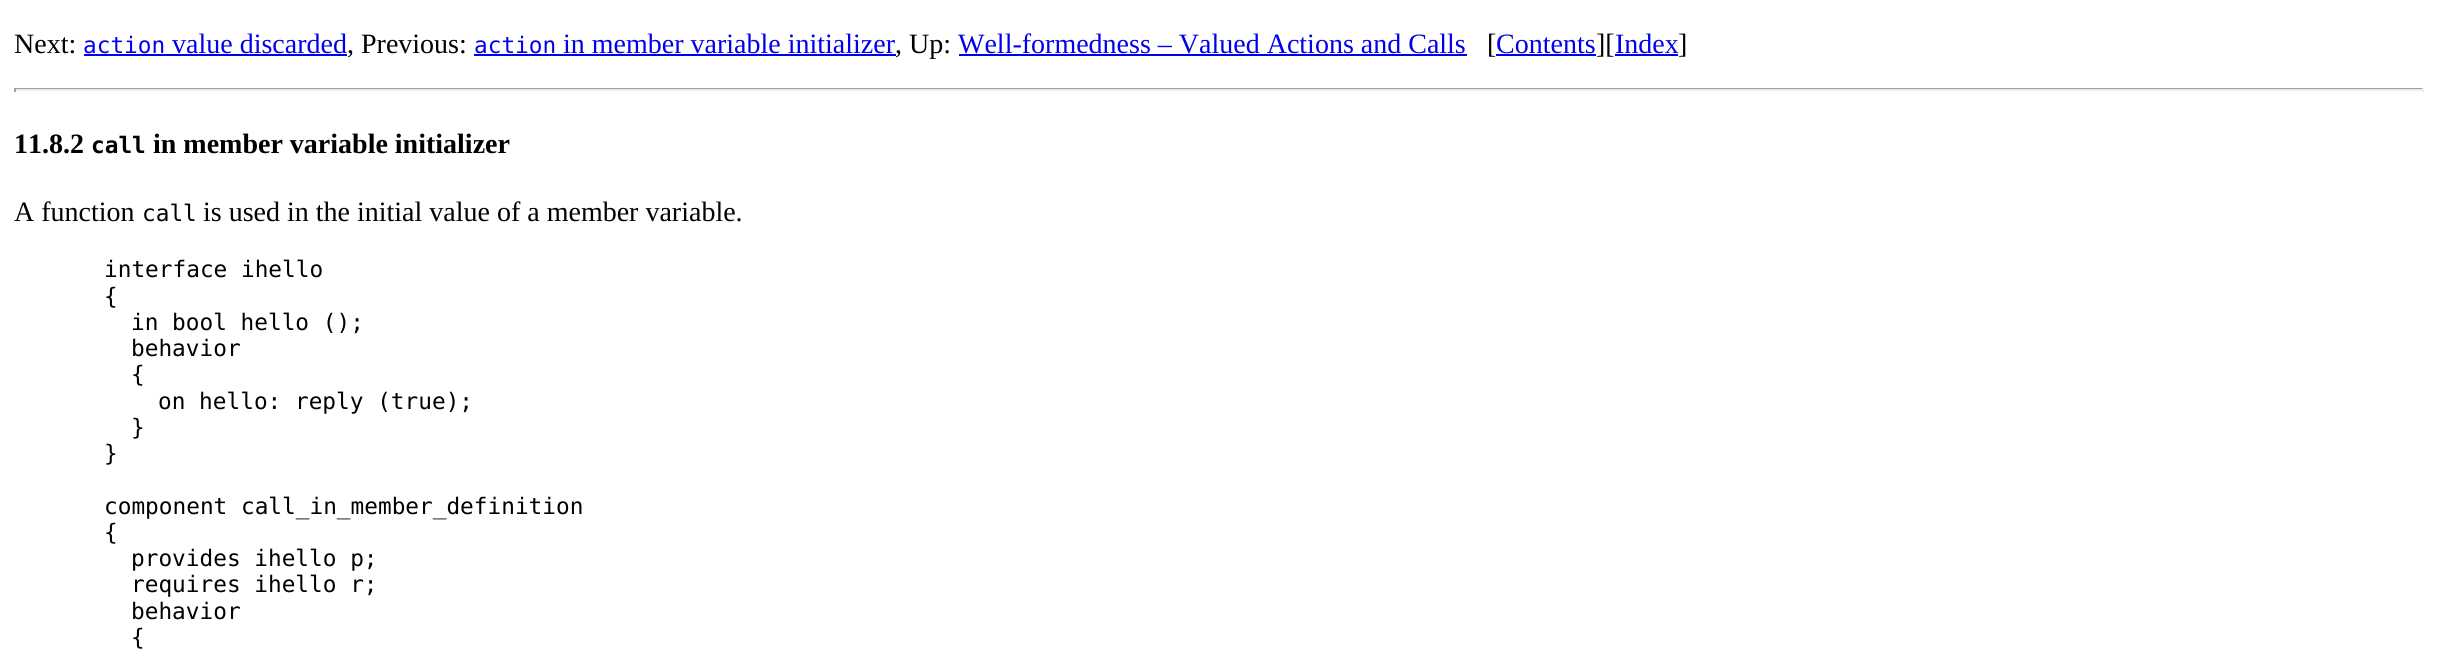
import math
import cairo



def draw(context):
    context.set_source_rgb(1, 1, 1)
    context.paint()
    context.set_source_rgb(0, 0, 238 / 255)
    context.rectangle(84, 54, 263, 2)
    context.fill()
    context.rectangle(474, 54, 422, 2)
    context.fill()
    context.rectangle(959, 54, 508, 2)
    context.fill()
    context.rectangle(1496, 54, 100, 2)
    context.fill()
    context.rectangle(1615, 54, 63, 2)
    context.fill()
    context.set_source_rgb(159 / 255, 159 / 255, 159 / 255)
    context.rectangle(14, 88, 2410, 1)
    context.fill()
    context.set_source_rgb(238 / 255, 238 / 255, 238 / 255)
    context.rectangle(2422, 88, 2, 4)
    context.fill()
    context.rectangle(14, 89, 2410, 2)
    context.fill()
    context.set_source_rgb(159 / 255, 159 / 255, 159 / 255)
    context.rectangle(14, 88, 2, 4)
    context.fill()
    context.select_font_face("Liberation Serif")
    context.set_font_size(28)
    context.set_source_rgb(0, 0, 0)
    context.move_to(14, 53)
    context.show_text("Next:")
    context.select_font_face("DejaVu Sans Mono")
    context.set_font_size(22.75)
    context.set_source_rgb(0, 0, 238 / 255)
    context.move_to(83, 53)
    context.show_text("action")
    context.select_font_face("Liberation Serif")
    context.set_font_size(28)
    context.move_to(172, 53)
    context.show_text("value discarded")
    context.set_source_rgb(0, 0, 0)
    context.move_to(347, 53)
    context.show_text(", Previous:")
    context.select_font_face("DejaVu Sans Mono")
    context.set_font_size(22.75)
    context.set_source_rgb(0, 0, 238 / 255)
    context.move_to(474, 53)
    context.show_text("action")
    context.select_font_face("Liberation Serif")
    context.set_font_size(28)
    context.move_to(563, 53)
    context.show_text("in member variable initializer")
    context.set_source_rgb(0, 0, 0)
    context.move_to(895, 53)
    context.show_text(", Up:")
    context.set_source_rgb(0, 0, 238 / 255)
    context.move_to(958, 53)
    context.show_text("Well-formedness – Valued Actions and Calls")
    context.set_source_rgb(0, 0, 0)
    context.move_to(1487, 53)
    context.show_text("[")
    context.set_source_rgb(0, 0, 238 / 255)
    context.move_to(1496, 53)
    context.show_text("Contents")
    context.set_source_rgb(0, 0, 0)
    context.move_to(1596, 53)
    context.show_text("][")
    context.set_source_rgb(0, 0, 238 / 255)
    context.move_to(1615, 53)
    context.show_text("Index")
    context.set_source_rgb(0, 0, 0)
    context.move_to(1678, 53)
    context.show_text("]")
    context.select_font_face("Liberation Serif", cairo.FontSlant.NORMAL, cairo.FontWeight.BOLD)
    context.move_to(14, 153)
    context.show_text("11.8.2")
    context.select_font_face("DejaVu Sans Mono", cairo.FontSlant.NORMAL, cairo.FontWeight.BOLD)
    context.set_font_size(22.75)
    context.move_to(91, 153)
    context.show_text("call")
    context.select_font_face("Liberation Serif", cairo.FontSlant.NORMAL, cairo.FontWeight.BOLD)
    context.set_font_size(28)
    context.move_to(153, 153)
    context.show_text("in member variable initializer")
    context.select_font_face("Liberation Serif")
    context.move_to(14, 221)
    context.show_text("A function")
    context.select_font_face("DejaVu Sans Mono")
    context.set_font_size(22.75)
    context.move_to(142, 221)
    context.show_text("call")
    context.select_font_face("Liberation Serif")
    context.set_font_size(28)
    context.move_to(203, 221)
    context.show_text("is used in the initial value of a member variable.")
    context.select_font_face("DejaVu Sans Mono")
    context.set_font_size(22.75)
    context.move_to(104, 277)
    context.show_text("interface ihello")
    context.move_to(104, 304)
    context.show_text("{")
    context.move_to(131, 330)
    context.show_text("in bool hello ();")
    context.move_to(131, 356)
    context.show_text("behavior")
    context.move_to(131, 382)
    context.show_text("{")
    context.move_to(158, 409)
    context.show_text("on hello: reply (true);")
    context.move_to(131, 435)
    context.show_text("}")
    context.move_to(104, 461)
    context.show_text("}")
    context.move_to(104, 514)
    context.show_text("component call_in_member_definition")
    context.move_to(104, 540)
    context.show_text("{")
    context.move_to(131, 566)
    context.show_text("provides ihello p;")
    context.move_to(131, 592)
    context.show_text("requires ihello r;")
    context.move_to(131, 619)
    context.show_text("behavior")
    context.move_to(131, 645)
    context.show_text("{")


surface = cairo.ImageSurface(cairo.Format.RGB24, 2437, 662)
context = cairo.Context(surface)
options = cairo.FontOptions()
options.set_hint_metrics(cairo.HintMetrics.OFF)
options.set_hint_style(cairo.HintStyle.NONE)
context.set_font_options(options)
context.set_miter_limit(4)
draw(context)
surface.write_to_png("out.png")
